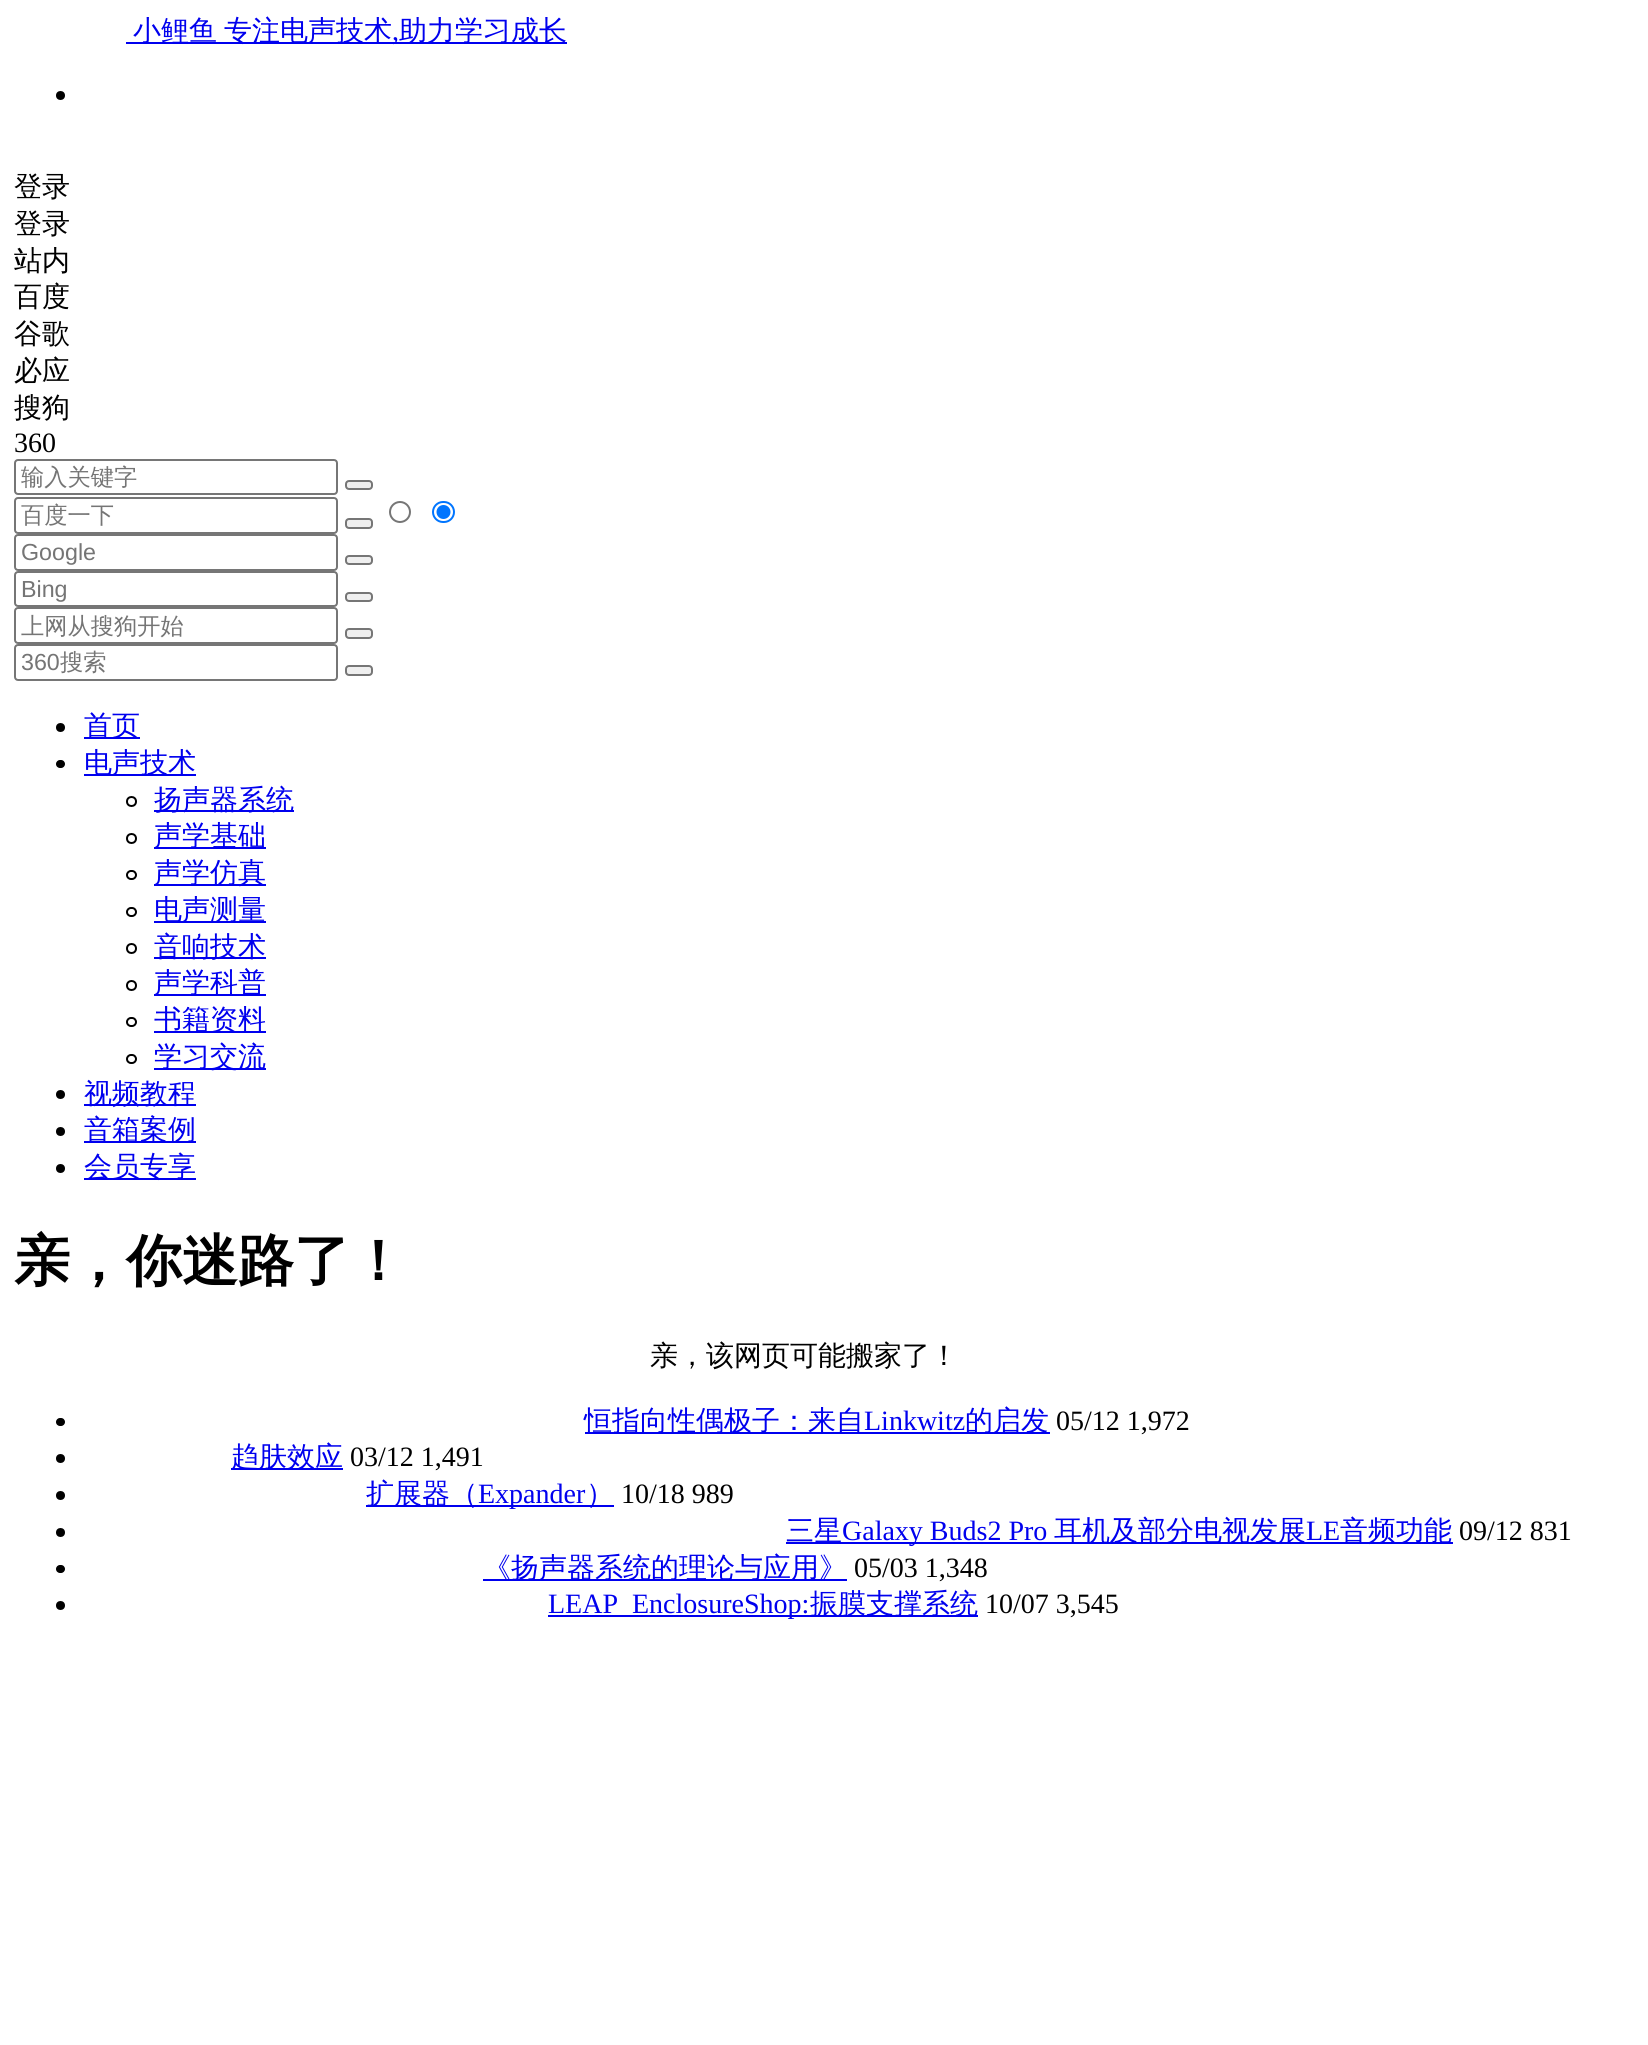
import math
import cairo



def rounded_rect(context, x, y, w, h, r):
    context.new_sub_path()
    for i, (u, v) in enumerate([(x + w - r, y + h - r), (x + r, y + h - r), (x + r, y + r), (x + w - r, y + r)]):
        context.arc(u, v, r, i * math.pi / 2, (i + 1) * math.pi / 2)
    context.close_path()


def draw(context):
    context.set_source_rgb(1, 1, 1)
    context.paint()
    context.set_source_rgb(0, 0, 238 / 255)
    context.rectangle(126, 42, 441, 2)
    context.fill()
    context.set_source_rgb(0, 0, 0)
    context.arc(60.5, 95.5, 4.5, 0, 2 * math.pi)
    context.fill()
    rounded_rect(context, 15, 460, 322, 34, 3)
    context.set_source_rgb(118 / 255, 118 / 255, 118 / 255)
    context.stroke()
    context.set_source_rgb(239 / 255, 239 / 255, 239 / 255)
    rounded_rect(context, 346, 481, 26, 8, 3)
    context.fill_preserve()
    context.set_source_rgb(118 / 255, 118 / 255, 118 / 255)
    context.stroke()
    rounded_rect(context, 15, 498, 322, 35, 3)
    context.stroke()
    context.set_source_rgb(239 / 255, 239 / 255, 239 / 255)
    rounded_rect(context, 346, 519, 26, 9, 3)
    context.fill_preserve()
    context.set_source_rgb(118 / 255, 118 / 255, 118 / 255)
    context.stroke()
    context.arc(400, 512, 10, 0, 2 * math.pi)
    context.stroke()
    rounded_rect(context, 433, 502, 21, 20, 10)
    context.set_source_rgb(0, 117 / 255, 1)
    context.stroke()
    context.arc(443.5, 512, 7, 0, 2 * math.pi)
    context.fill()
    rounded_rect(context, 15, 535, 322, 35, 3)
    context.set_source_rgb(118 / 255, 118 / 255, 118 / 255)
    context.stroke()
    context.set_source_rgb(239 / 255, 239 / 255, 239 / 255)
    rounded_rect(context, 346, 556, 26, 8, 3)
    context.fill_preserve()
    context.set_source_rgb(118 / 255, 118 / 255, 118 / 255)
    context.stroke()
    rounded_rect(context, 15, 572, 322, 34, 3)
    context.stroke()
    context.set_source_rgb(239 / 255, 239 / 255, 239 / 255)
    rounded_rect(context, 346, 593, 26, 8, 3)
    context.fill_preserve()
    context.set_source_rgb(118 / 255, 118 / 255, 118 / 255)
    context.stroke()
    rounded_rect(context, 15, 608, 322, 35, 3)
    context.stroke()
    context.set_source_rgb(239 / 255, 239 / 255, 239 / 255)
    rounded_rect(context, 346, 629, 26, 9, 3)
    context.fill_preserve()
    context.set_source_rgb(118 / 255, 118 / 255, 118 / 255)
    context.stroke()
    rounded_rect(context, 15, 645, 322, 35, 3)
    context.stroke()
    context.set_source_rgb(239 / 255, 239 / 255, 239 / 255)
    rounded_rect(context, 346, 666, 26, 9, 3)
    context.fill_preserve()
    context.set_source_rgb(118 / 255, 118 / 255, 118 / 255)
    context.stroke()
    context.set_source_rgb(0, 0, 0)
    context.arc(60.5, 727.5, 4.5, 0, 2 * math.pi)
    context.fill()
    context.set_source_rgb(0, 0, 238 / 255)
    context.rectangle(84, 737, 56, 2)
    context.fill()
    context.set_source_rgb(0, 0, 0)
    rounded_rect(context, 56, 760, 9, 8, 4)
    context.fill()
    context.set_source_rgb(0, 0, 238 / 255)
    context.rectangle(84, 774, 112, 2)
    context.fill()
    context.arc(131.5, 801.5, 4.5, 0, 2 * math.pi)
    context.set_source_rgb(0, 0, 0)
    context.stroke()
    context.set_source_rgb(0, 0, 238 / 255)
    context.rectangle(154, 810, 140, 2)
    context.fill()
    context.arc(131.5, 838.5, 4.5, 0, 2 * math.pi)
    context.set_source_rgb(0, 0, 0)
    context.stroke()
    context.set_source_rgb(0, 0, 238 / 255)
    context.rectangle(154, 847, 112, 2)
    context.fill()
    rounded_rect(context, 127, 871, 9, 8, 4)
    context.set_source_rgb(0, 0, 0)
    context.stroke()
    context.set_source_rgb(0, 0, 238 / 255)
    context.rectangle(154, 884, 112, 2)
    context.fill()
    rounded_rect(context, 127, 908, 9, 8, 4)
    context.set_source_rgb(0, 0, 0)
    context.stroke()
    context.set_source_rgb(0, 0, 238 / 255)
    context.rectangle(154, 921, 112, 2)
    context.fill()
    context.arc(131.5, 948.5, 4.5, 0, 2 * math.pi)
    context.set_source_rgb(0, 0, 0)
    context.stroke()
    context.set_source_rgb(0, 0, 238 / 255)
    context.rectangle(154, 957, 112, 2)
    context.fill()
    context.arc(131.5, 985.5, 4.5, 0, 2 * math.pi)
    context.set_source_rgb(0, 0, 0)
    context.stroke()
    context.set_source_rgb(0, 0, 238 / 255)
    context.rectangle(154, 994, 112, 2)
    context.fill()
    rounded_rect(context, 127, 1018, 9, 8, 4)
    context.set_source_rgb(0, 0, 0)
    context.stroke()
    context.set_source_rgb(0, 0, 238 / 255)
    context.rectangle(154, 1031, 112, 2)
    context.fill()
    rounded_rect(context, 127, 1055, 9, 8, 4)
    context.set_source_rgb(0, 0, 0)
    context.stroke()
    context.set_source_rgb(0, 0, 238 / 255)
    context.rectangle(154, 1068, 112, 2)
    context.fill()
    context.set_source_rgb(0, 0, 0)
    context.arc(60.5, 1094.5, 4.5, 0, 2 * math.pi)
    context.fill()
    context.set_source_rgb(0, 0, 238 / 255)
    context.rectangle(84, 1104, 112, 2)
    context.fill()
    context.set_source_rgb(0, 0, 0)
    context.arc(60.5, 1131.5, 4.5, 0, 2 * math.pi)
    context.fill()
    context.set_source_rgb(0, 0, 238 / 255)
    context.rectangle(84, 1141, 112, 2)
    context.fill()
    context.set_source_rgb(0, 0, 0)
    context.arc(60.5, 1168.5, 4.5, 0, 2 * math.pi)
    context.fill()
    context.set_source_rgb(0, 0, 238 / 255)
    context.rectangle(84, 1178, 112, 2)
    context.fill()
    context.set_source_rgb(0, 0, 0)
    rounded_rect(context, 56, 1418, 9, 8, 4)
    context.fill()
    context.set_source_rgb(0, 0, 238 / 255)
    context.rectangle(585, 1432, 465, 2)
    context.fill()
    context.set_source_rgb(0, 0, 0)
    context.arc(60.5, 1458.5, 4.5, 0, 2 * math.pi)
    context.fill()
    context.set_source_rgb(0, 0, 238 / 255)
    context.rectangle(231, 1468, 112, 2)
    context.fill()
    context.set_source_rgb(0, 0, 0)
    context.arc(60.5, 1495.5, 4.5, 0, 2 * math.pi)
    context.fill()
    context.set_source_rgb(0, 0, 238 / 255)
    context.rectangle(366, 1505, 248, 2)
    context.fill()
    context.set_source_rgb(0, 0, 0)
    context.arc(60.5, 1532.5, 4.5, 0, 2 * math.pi)
    context.fill()
    context.set_source_rgb(0, 0, 238 / 255)
    context.rectangle(786, 1542, 667, 2)
    context.fill()
    context.set_source_rgb(0, 0, 0)
    rounded_rect(context, 56, 1565, 9, 8, 4)
    context.fill()
    context.set_source_rgb(0, 0, 238 / 255)
    context.rectangle(483, 1579, 364, 2)
    context.fill()
    context.set_source_rgb(0, 0, 0)
    context.arc(60.5, 1605.5, 4.5, 0, 2 * math.pi)
    context.fill()
    context.set_source_rgb(0, 0, 238 / 255)
    context.rectangle(548, 1615, 430, 2)
    context.fill()
    context.select_font_face("WenQuanYi Zen Hei Medium")
    context.set_font_size(28)
    context.move_to(133, 40)
    context.show_text("小鲤鱼")
    context.move_to(224, 40)
    context.show_text("专注电声技术")
    context.select_font_face("Liberation Serif")
    context.move_to(392, 40)
    context.show_text(",")
    context.select_font_face("WenQuanYi Zen Hei Medium")
    context.move_to(399, 40)
    context.show_text("助力学习成长")
    context.set_source_rgb(0, 0, 0)
    context.move_to(14, 196)
    context.show_text("登录")
    context.move_to(14, 233)
    context.show_text("登录")
    context.move_to(14, 270)
    context.show_text("站内")
    context.move_to(14, 306)
    context.show_text("百度")
    context.move_to(14, 343)
    context.show_text("谷歌")
    context.move_to(14, 380)
    context.show_text("必应")
    context.move_to(14, 417)
    context.show_text("搜狗")
    context.select_font_face("Liberation Serif")
    context.move_to(14, 452)
    context.show_text("360")
    context.select_font_face("WenQuanYi Zen Hei Medium")
    context.set_font_size(23.25)
    context.set_source_rgb(117 / 255, 117 / 255, 117 / 255)
    context.move_to(21, 485)
    context.show_text("输入关键字")
    context.move_to(21, 523)
    context.show_text("百度一下")
    context.select_font_face("Liberation Sans")
    context.move_to(21, 560)
    context.show_text("Google")
    context.move_to(21, 597)
    context.show_text("Bing")
    context.select_font_face("WenQuanYi Zen Hei Medium")
    context.move_to(21, 634)
    context.show_text("上网从搜狗开始")
    context.select_font_face("Liberation Sans")
    context.move_to(21, 670)
    context.show_text("360")
    context.select_font_face("WenQuanYi Zen Hei Medium")
    context.move_to(60, 670)
    context.show_text("搜索")
    context.set_font_size(28)
    context.set_source_rgb(0, 0, 238 / 255)
    context.move_to(84, 735)
    context.show_text("首页")
    context.move_to(84, 772)
    context.show_text("电声技术")
    context.move_to(154, 809)
    context.show_text("扬声器系统")
    context.move_to(154, 845)
    context.show_text("声学基础")
    context.move_to(154, 882)
    context.show_text("声学仿真")
    context.move_to(154, 919)
    context.show_text("电声测量")
    context.move_to(154, 956)
    context.show_text("音响技术")
    context.move_to(154, 992)
    context.show_text("声学科普")
    context.move_to(154, 1029)
    context.show_text("书籍资料")
    context.move_to(154, 1066)
    context.show_text("学习交流")
    context.move_to(84, 1103)
    context.show_text("视频教程")
    context.move_to(84, 1139)
    context.show_text("音箱案例")
    context.move_to(84, 1176)
    context.show_text("会员专享")
    context.select_font_face("WenQuanYi Zen Hei", cairo.FontSlant.NORMAL, cairo.FontWeight.BOLD)
    context.set_font_size(56)
    context.set_source_rgb(0, 0, 0)
    context.move_to(14, 1280)
    context.show_text("亲，你迷路了！")
    context.select_font_face("WenQuanYi Zen Hei Medium")
    context.set_font_size(28)
    context.move_to(650, 1365)
    context.show_text("亲，该网页可能搬家了！")
    context.set_source_rgb(0, 0, 238 / 255)
    context.move_to(584, 1430)
    context.show_text("恒指向性偶极子：来自")
    context.select_font_face("Liberation Serif")
    context.move_to(864, 1430)
    context.show_text("Linkwitz")
    context.select_font_face("WenQuanYi Zen Hei Medium")
    context.move_to(965, 1430)
    context.show_text("的启发")
    context.select_font_face("Liberation Serif")
    context.set_source_rgb(0, 0, 0)
    context.move_to(1056, 1430)
    context.show_text("05/12 1,972")
    context.select_font_face("WenQuanYi Zen Hei Medium")
    context.set_source_rgb(0, 0, 238 / 255)
    context.move_to(231, 1466)
    context.show_text("趋肤效应")
    context.select_font_face("Liberation Serif")
    context.set_source_rgb(0, 0, 0)
    context.move_to(350, 1466)
    context.show_text("03/12 1,491")
    context.select_font_face("WenQuanYi Zen Hei Medium")
    context.set_source_rgb(0, 0, 238 / 255)
    context.move_to(366, 1503)
    context.show_text("扩展器（")
    context.select_font_face("Liberation Serif")
    context.move_to(478, 1503)
    context.show_text("Expander")
    context.select_font_face("WenQuanYi Zen Hei Medium")
    context.move_to(586, 1503)
    context.show_text("）")
    context.select_font_face("Liberation Serif")
    context.set_source_rgb(0, 0, 0)
    context.move_to(621, 1503)
    context.show_text("10/18 989")
    context.select_font_face("WenQuanYi Zen Hei Medium")
    context.set_source_rgb(0, 0, 238 / 255)
    context.move_to(786, 1540)
    context.show_text("三星")
    context.select_font_face("Liberation Serif")
    context.move_to(842, 1540)
    context.show_text("Galaxy Buds2 Pro")
    context.select_font_face("WenQuanYi Zen Hei Medium")
    context.move_to(1054, 1540)
    context.show_text("耳机及部分电视发展")
    context.select_font_face("Liberation Serif")
    context.move_to(1306, 1540)
    context.show_text("LE")
    context.select_font_face("WenQuanYi Zen Hei Medium")
    context.move_to(1340, 1540)
    context.show_text("音频功能")
    context.select_font_face("Liberation Serif")
    context.set_source_rgb(0, 0, 0)
    context.move_to(1459, 1540)
    context.show_text("09/12 831")
    context.select_font_face("WenQuanYi Zen Hei Medium")
    context.set_source_rgb(0, 0, 238 / 255)
    context.move_to(483, 1577)
    context.show_text("《扬声器系统的理论与应用》")
    context.select_font_face("Liberation Serif")
    context.set_source_rgb(0, 0, 0)
    context.move_to(854, 1577)
    context.show_text("05/03 1,348")
    context.set_source_rgb(0, 0, 238 / 255)
    context.move_to(548, 1613)
    context.show_text("LEAP_EnclosureShop:")
    context.select_font_face("WenQuanYi Zen Hei Medium")
    context.move_to(810, 1613)
    context.show_text("振膜支撑系统")
    context.select_font_face("Liberation Serif")
    context.set_source_rgb(0, 0, 0)
    context.move_to(985, 1613)
    context.show_text("10/07 3,545")


surface = cairo.ImageSurface(cairo.Format.RGB24, 1648, 2045)
context = cairo.Context(surface)
options = cairo.FontOptions()
options.set_hint_metrics(cairo.HintMetrics.OFF)
options.set_hint_style(cairo.HintStyle.NONE)
context.set_font_options(options)
context.set_miter_limit(4)
draw(context)
surface.write_to_png("out.png")
